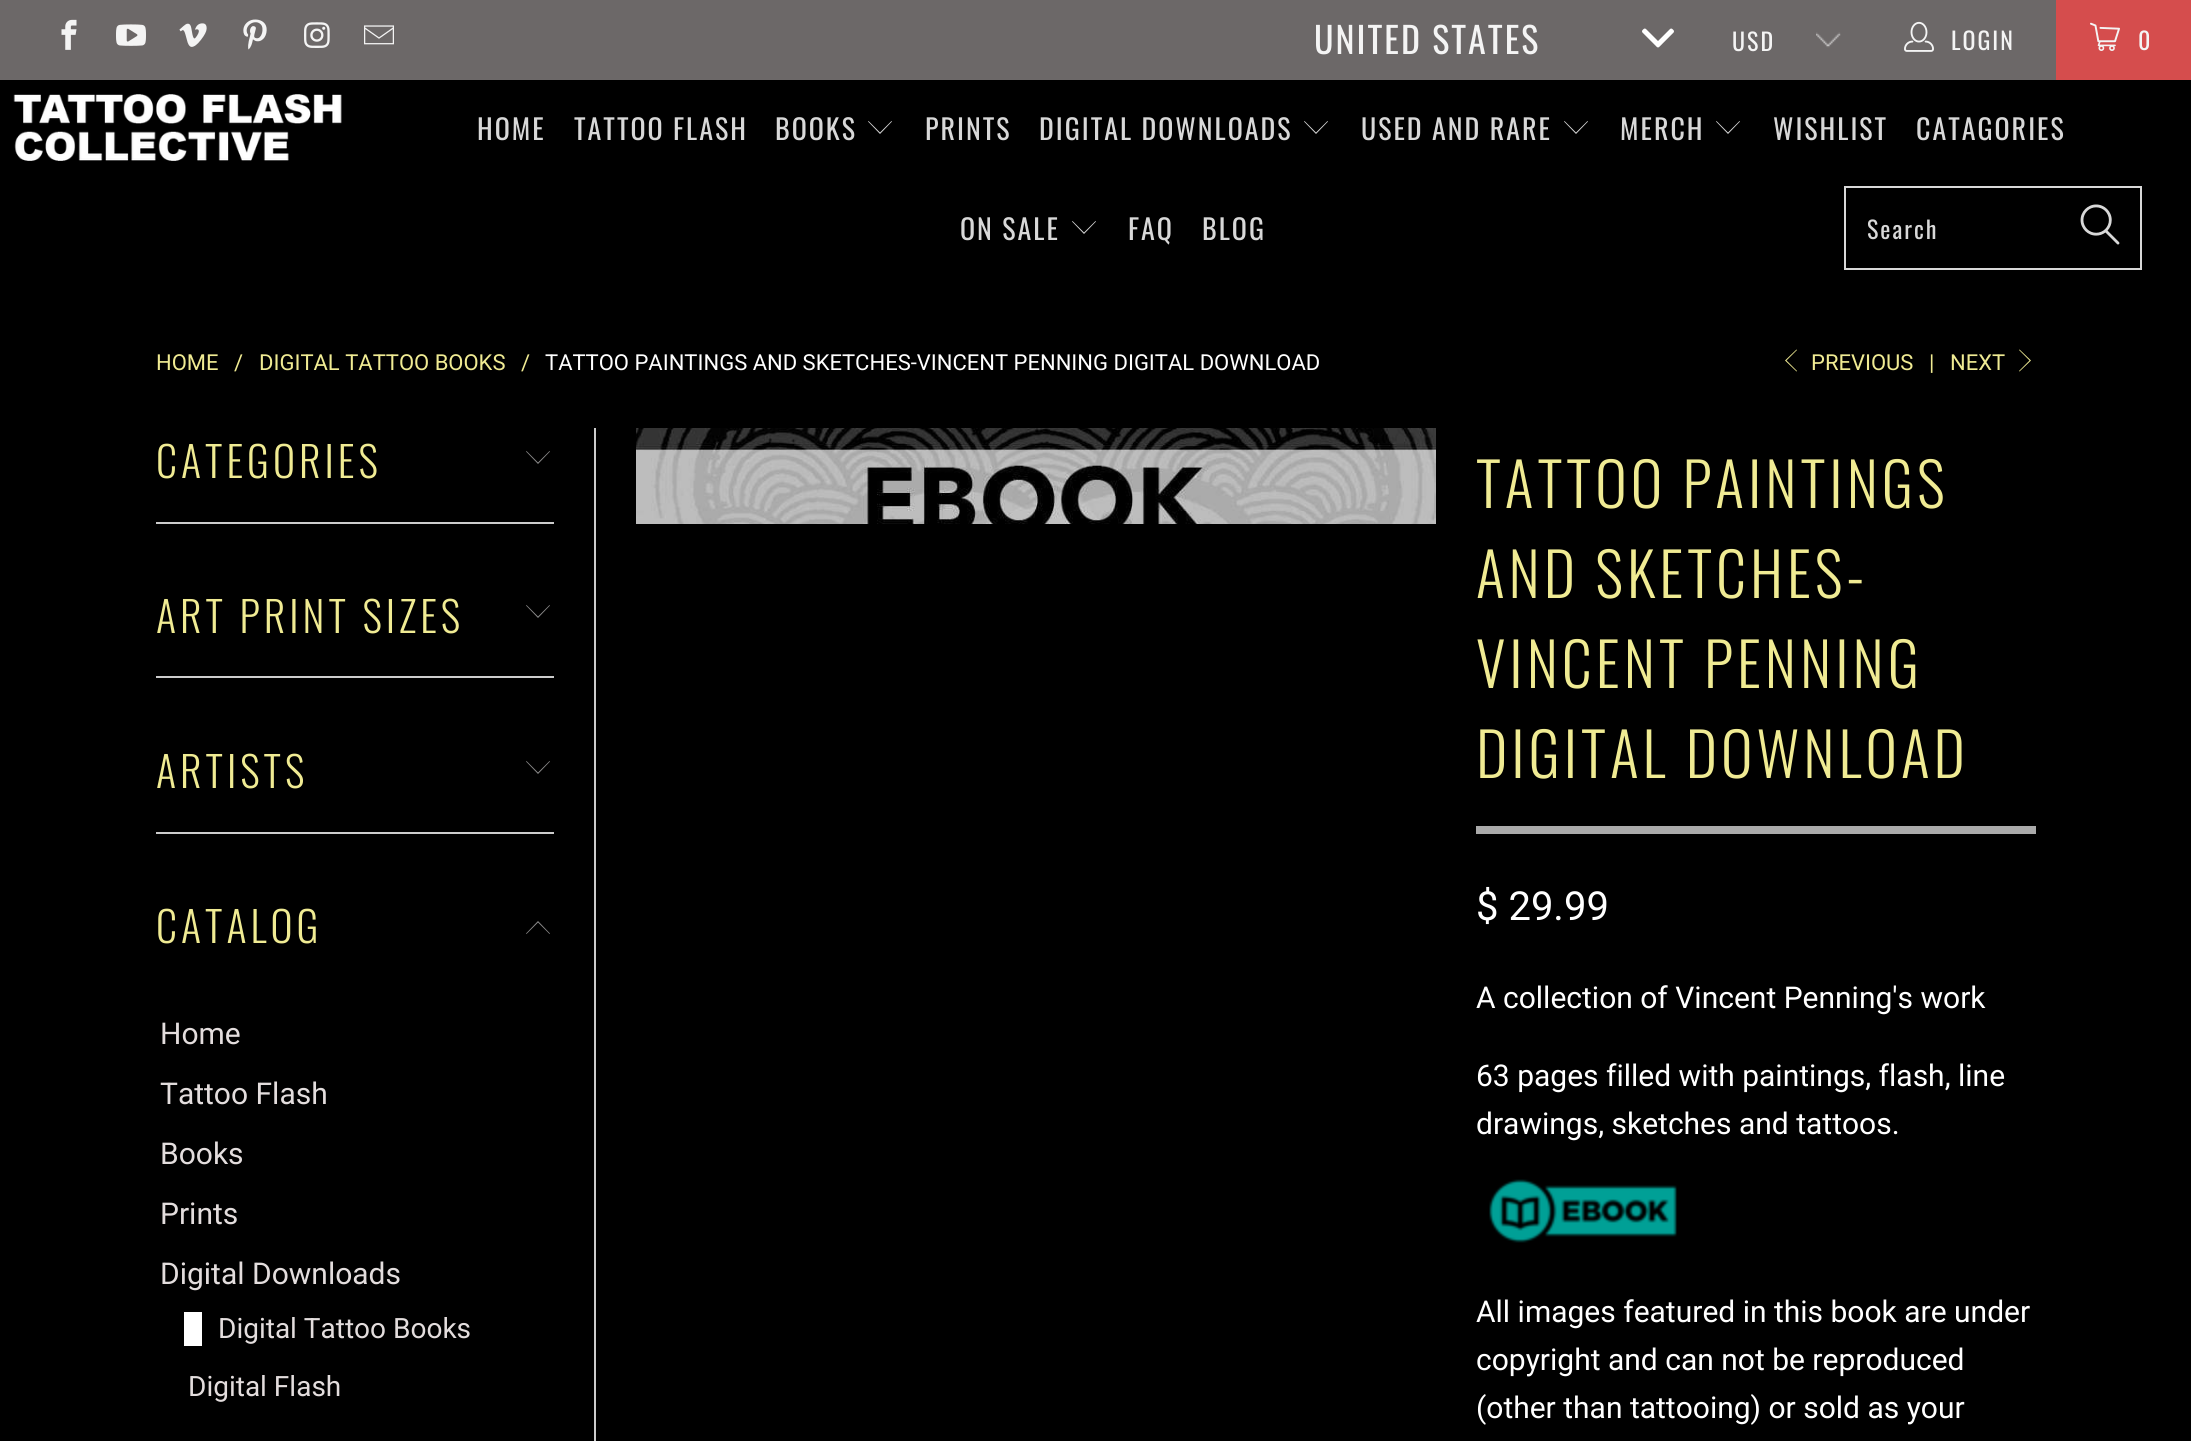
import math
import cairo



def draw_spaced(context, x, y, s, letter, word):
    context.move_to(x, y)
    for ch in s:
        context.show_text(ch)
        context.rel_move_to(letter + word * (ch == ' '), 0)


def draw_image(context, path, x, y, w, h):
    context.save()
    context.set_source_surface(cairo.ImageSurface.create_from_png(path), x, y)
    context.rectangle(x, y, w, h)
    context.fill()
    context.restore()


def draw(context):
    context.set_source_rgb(0, 0, 0)
    context.paint()
    context.set_source_rgb(108 / 255, 104 / 255, 104 / 255)
    context.rectangle(0, 0, 2056, 80)
    context.fill()
    draw_image(context, "images/1.png", 61, 19, 16, 31)
    draw_image(context, "images/2.png", 116, 24, 30, 22)
    draw_image(context, "images/3.png", 179, 23, 28, 24)
    draw_image(context, "images/4.png", 243, 19, 24, 31)
    draw_image(context, "images/5.png", 304, 22, 26, 26)
    draw_image(context, "images/6.png", 364, 25, 30, 20)
    draw_image(context, "images/7.png", 1642, 28, 32, 20)
    draw_image(context, "images/8.png", 1816, 32, 25, 16)
    draw_image(context, "images/9.png", 1904, 21, 30, 31)
    context.set_source_rgb(213 / 255, 77 / 255, 77 / 255)
    context.rectangle(2056, 0, 135, 80)
    context.fill()
    draw_image(context, "images/10.png", 2090, 22, 30, 29)
    draw_image(context, "images/11.png", 13, 94, 329, 67)
    context.set_source_rgb(216 / 255, 216 / 255, 216 / 255)
    context.new_path()
    context.move_to(880, 134)
    context.line_to(868, 121.5)
    context.line_to(868.5, 121)
    context.line_to(880, 132.5)
    context.line_to(891.5, 121)
    context.line_to(892, 121.5)
    context.close_path()
    context.fill()
    context.new_path()
    context.move_to(1316, 134)
    context.line_to(1304, 121.5)
    context.line_to(1304.5, 121)
    context.line_to(1316, 132.5)
    context.line_to(1327.5, 121)
    context.line_to(1328, 121.5)
    context.close_path()
    context.fill()
    context.new_path()
    context.move_to(1576, 134)
    context.line_to(1564, 121.5)
    context.line_to(1564.5, 121)
    context.line_to(1576, 132.5)
    context.line_to(1587.5, 121)
    context.line_to(1588, 121.5)
    context.close_path()
    context.fill()
    context.new_path()
    context.move_to(1728, 134)
    context.line_to(1716, 121.5)
    context.line_to(1716.5, 121)
    context.line_to(1728, 132.5)
    context.line_to(1739.5, 121)
    context.line_to(1740, 121.5)
    context.close_path()
    context.fill()
    context.new_path()
    context.move_to(1084, 234)
    context.line_to(1072, 221.5)
    context.line_to(1072.5, 221)
    context.line_to(1084, 232.5)
    context.line_to(1095.5, 221)
    context.line_to(1096, 221.5)
    context.close_path()
    context.fill()
    context.rectangle(1845, 187, 296, 82)
    context.stroke()
    draw_image(context, "images/12.png", 2080, 204, 40, 41)
    context.set_source_rgb(240 / 255, 235 / 255, 147 / 255)
    context.new_path()
    context.move_to(1796.5, 371.5)
    context.line_to(1785, 360.5)
    context.line_to(1796.5, 349.5)
    context.line_to(1797, 350)
    context.line_to(1786.5, 360.5)
    context.line_to(1797, 371)
    context.close_path()
    context.fill()
    context.new_path()
    context.move_to(2019.5, 371.5)
    context.line_to(2019, 371)
    context.line_to(2029.5, 360.5)
    context.line_to(2019, 350)
    context.line_to(2019.5, 349.5)
    context.line_to(2031, 360.5)
    context.close_path()
    context.fill()
    context.set_source_rgb(204 / 255, 204 / 255, 204 / 255)
    context.rectangle(594, 428, 2, 1013)
    context.fill()
    context.rectangle(156, 522, 398, 2)
    context.fill()
    context.set_source_rgb(140 / 255, 139 / 255, 139 / 255)
    context.new_path()
    context.move_to(538, 464)
    context.line_to(526, 451.5)
    context.line_to(526.5, 451)
    context.line_to(538, 462.5)
    context.line_to(549.5, 451)
    context.line_to(550, 451.5)
    context.close_path()
    context.fill()
    context.set_source_rgb(204 / 255, 204 / 255, 204 / 255)
    context.rectangle(156, 676, 398, 2)
    context.fill()
    context.set_source_rgb(140 / 255, 139 / 255, 139 / 255)
    context.new_path()
    context.move_to(538, 618)
    context.line_to(526, 605.5)
    context.line_to(526.5, 605)
    context.line_to(538, 616.5)
    context.line_to(549.5, 605)
    context.line_to(550, 605.5)
    context.close_path()
    context.fill()
    context.set_source_rgb(204 / 255, 204 / 255, 204 / 255)
    context.rectangle(156, 832, 398, 2)
    context.fill()
    context.set_source_rgb(140 / 255, 139 / 255, 139 / 255)
    context.new_path()
    context.move_to(538, 774)
    context.line_to(526, 761.5)
    context.line_to(526.5, 761)
    context.line_to(538, 772.5)
    context.line_to(549.5, 761)
    context.line_to(550, 761.5)
    context.close_path()
    context.fill()
    context.new_path()
    context.move_to(538, 921)
    context.line_to(526, 933.5)
    context.line_to(526.5, 934)
    context.line_to(538, 922.5)
    context.line_to(549.5, 934)
    context.line_to(550, 933.5)
    context.close_path()
    context.fill()
    context.set_source_rgb(1, 1, 1)
    context.rectangle(184, 1312, 18, 34)
    context.fill()
    draw_image(context, "images/13.png", 636, 428, 800, 96)
    context.set_source_rgb(170 / 255, 170 / 255, 170 / 255)
    context.rectangle(1476, 826, 560, 8)
    context.fill()
    draw_image(context, "images/14.png", 1489, 1179, 188, 64)
    context.select_font_face("Oswald")
    context.set_font_size(36)
    context.set_source_rgb(244 / 255, 244 / 255, 244 / 255)
    draw_spaced(context, 1314, 54, "UNITED STATES", 2, 0)
    context.set_font_size(24)
    draw_spaced(context, 1732, 51, "USD", 2, 0)
    draw_spaced(context, 1951, 50, "LOGIN", 2, 0)
    draw_spaced(context, 2138, 50, "0", 2, 0)
    context.set_font_size(28)
    context.set_source_rgb(216 / 255, 216 / 255, 216 / 255)
    draw_spaced(context, 477, 140, "HOME", 2, 0)
    draw_spaced(context, 574, 140, "TATTOO FLASH", 2, 0)
    draw_spaced(context, 775, 140, "BOOKS", 2, 0)
    draw_spaced(context, 925, 140, "PRINTS", 2, 0)
    draw_spaced(context, 1039, 140, "DIGITAL DOWNLOADS", 2, 0)
    draw_spaced(context, 1361, 140, "USED AND RARE", 2, 0)
    draw_spaced(context, 1620, 140, "MERCH", 2, 0)
    draw_spaced(context, 1773, 140, "WISHLIST", 2, 0)
    draw_spaced(context, 1916, 140, "CATAGORIES", 2, 0)
    draw_spaced(context, 960, 240, "ON SALE", 2, 0)
    draw_spaced(context, 1128, 240, "FAQ", 2, 0)
    draw_spaced(context, 1202, 240, "BLOG", 2, 0)
    context.set_font_size(24)
    draw_spaced(context, 1867, 239, "Search", 2, 0)
    context.select_font_face("Roboto")
    context.set_font_size(22)
    context.set_source_rgb(240 / 255, 235 / 255, 147 / 255)
    context.move_to(156, 370)
    context.show_text("HOME")
    context.move_to(234, 370)
    context.show_text("/")
    context.move_to(259, 370)
    context.show_text("DIGITAL TATTOO BOOKS")
    context.move_to(521, 370)
    context.show_text("/")
    context.set_source_rgb(1, 1, 1)
    context.move_to(545, 370)
    context.show_text("TATTOO PAINTINGS AND SKETCHES-VINCENT PENNING DIGITAL DOWNLOAD")
    context.set_source_rgb(240 / 255, 235 / 255, 147 / 255)
    context.move_to(1811, 370)
    context.show_text("PREVIOUS")
    context.move_to(1929, 370)
    context.show_text("|")
    context.move_to(1950, 370)
    context.show_text("NEXT")
    context.select_font_face("Oswald Light")
    context.set_font_size(42)
    draw_spaced(context, 156, 478, "CATEGORIES", 4, 0)
    draw_spaced(context, 156, 633, "ART PRINT SIZES", 4, 0)
    draw_spaced(context, 156, 788, "ARTISTS", 4, 0)
    draw_spaced(context, 156, 943, "CATALOG", 4, 0)
    context.select_font_face("Roboto")
    context.set_font_size(30)
    context.set_source_rgb(227 / 255, 221 / 255, 221 / 255)
    context.move_to(160, 1044)
    context.show_text("Home")
    context.move_to(160, 1104)
    context.show_text("Tattoo Flash")
    context.move_to(160, 1164)
    context.show_text("Books")
    context.move_to(160, 1224)
    context.show_text("Prints")
    context.move_to(160, 1284)
    context.show_text("Digital Downloads")
    context.set_font_size(28)
    context.move_to(218, 1338)
    context.show_text("Digital Tattoo Books")
    context.move_to(188, 1396)
    context.show_text("Digital Flash")
    context.select_font_face("Oswald Light")
    context.set_font_size(60)
    context.set_source_rgb(240 / 255, 235 / 255, 147 / 255)
    draw_spaced(context, 1476, 508, "TATTOO PAINTINGS", 4, 0)
    draw_spaced(context, 1476, 598, "AND SKETCHES-", 4, 0)
    draw_spaced(context, 1476, 688, "VINCENT PENNING", 4, 0)
    draw_spaced(context, 1476, 778, "DIGITAL DOWNLOAD", 4, 0)
    context.select_font_face("Roboto")
    context.set_font_size(40)
    context.set_source_rgb(1, 1, 1)
    context.move_to(1476, 920)
    context.show_text("$ 29.99")
    context.set_font_size(30)
    context.move_to(1476, 1008)
    context.show_text("A collection of Vincent Penning's work")
    context.move_to(1476, 1086)
    context.show_text("63 pages filled with paintings, flash, line")
    context.move_to(1476, 1134)
    context.show_text("drawings, sketches and tattoos.")
    context.move_to(1476, 1322)
    context.show_text("All images featured in this book are under")
    context.move_to(1476, 1370)
    context.show_text("copyright and can not be reproduced")
    context.move_to(1476, 1418)
    context.show_text("(other than tattooing) or sold as your")


surface = cairo.ImageSurface(cairo.Format.RGB24, 2191, 1441)
context = cairo.Context(surface)
options = cairo.FontOptions()
options.set_hint_metrics(cairo.HintMetrics.OFF)
options.set_hint_style(cairo.HintStyle.NONE)
context.set_font_options(options)
context.set_miter_limit(4)
draw(context)
surface.write_to_png("out.png")
